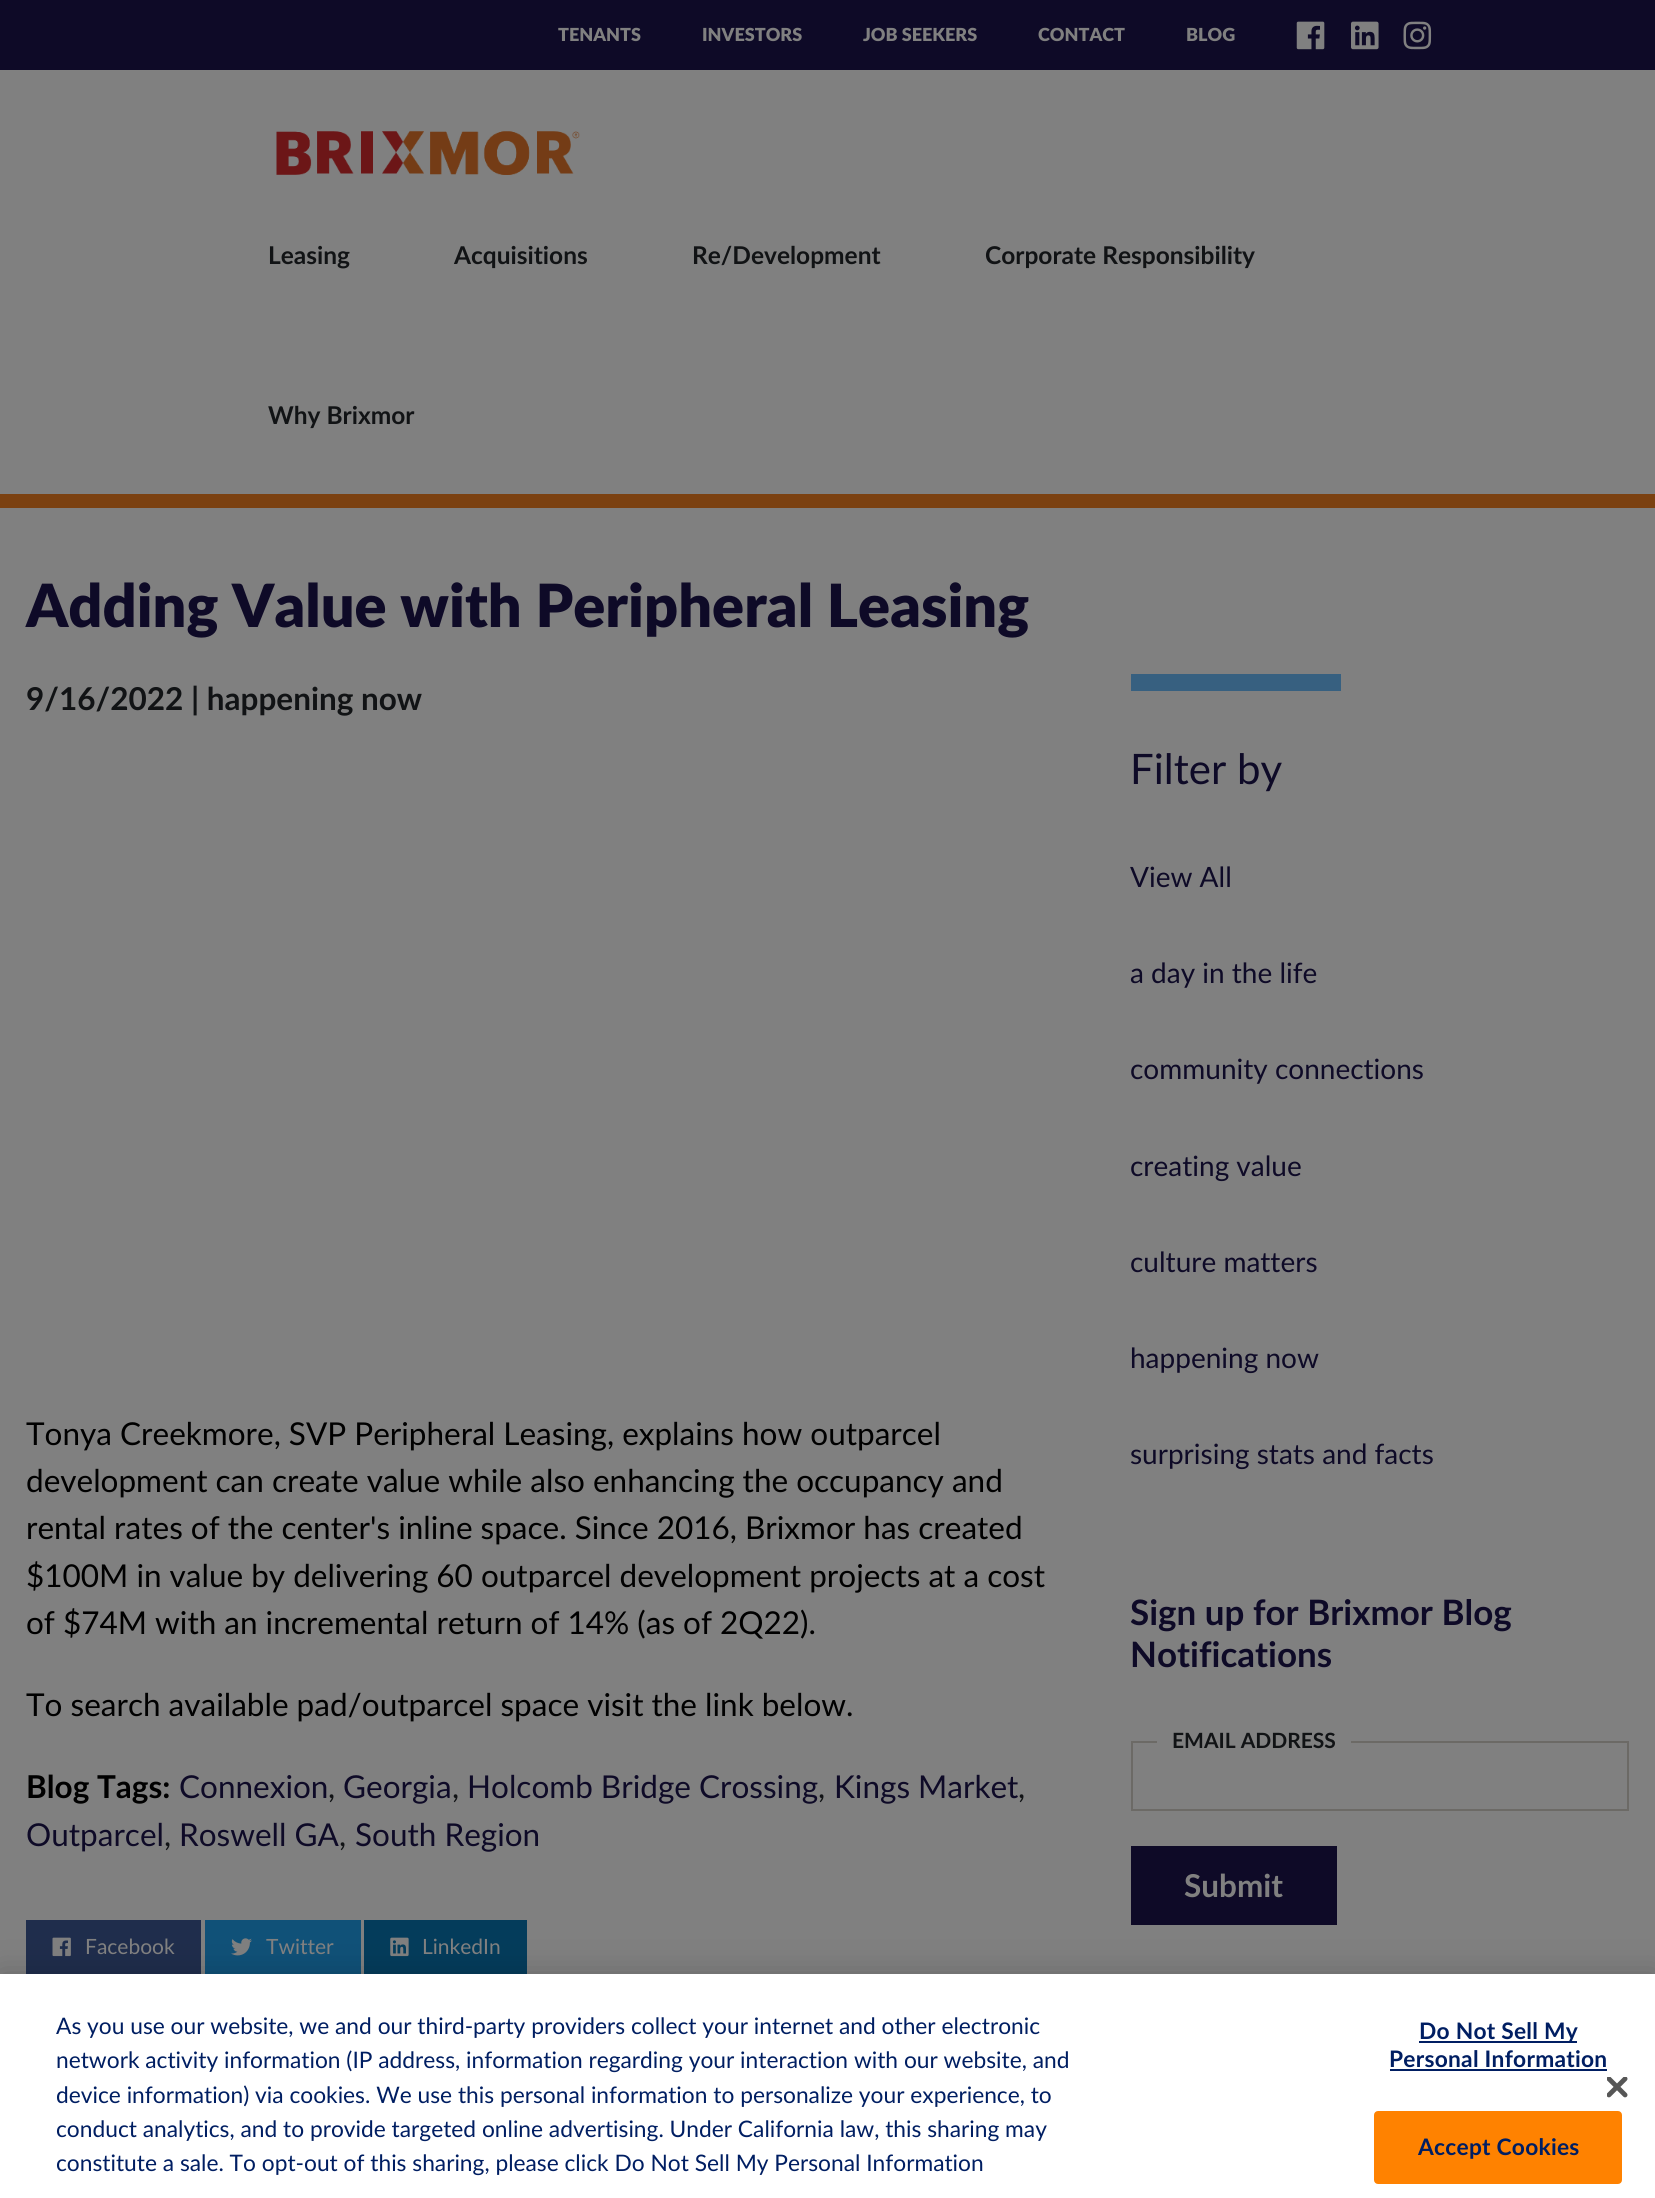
import math
import cairo



def draw_spaced(context, x, y, s, letter, word):
    context.move_to(x, y)
    for ch in s:
        context.show_text(ch)
        context.rel_move_to(letter + word * (ch == ' '), 0)


def rounded_rect(context, x, y, w, h, r):
    context.new_sub_path()
    for i, (u, v) in enumerate([(x + w - r, y + h - r), (x + r, y + h - r), (x + r, y + r), (x + w - r, y + r)]):
        context.arc(u, v, r, i * math.pi / 2, (i + 1) * math.pi / 2)
    context.close_path()


def draw_shadow(context, x, y, w, h, r, blur, alpha):
    context.push_group_with_content(cairo.Content.ALPHA)
    context.set_operator(cairo.Operator.SOURCE)
    for i in range(15, -16, -2):
        e = blur * i / 6
        if min(w, h) + 2 * e > 0:
            context.set_source_rgba(0, 0, 0, alpha * math.erfc((i - 1) / 8.5) / 2)
            rounded_rect(context, x - e, y - e, w + 2 * e, h + 2 * e, max(0, min(r + e + blur * .6, min(w, h) / 2 + e)))
            context.fill()
    context.mask(context.pop_group())


def draw_image(context, path, x, y, w, h):
    context.save()
    context.set_source_surface(cairo.ImageSurface.create_from_png(path), x, y)
    context.rectangle(x, y, w, h)
    context.fill()
    context.restore()


def draw(context):
    context.set_source_rgb(128 / 255, 128 / 255, 128 / 255)
    context.paint()
    context.set_source_rgb(123 / 255, 65 / 255, 17 / 255)
    context.rectangle(0, 494, 1655, 14)
    context.fill()
    context.set_source_rgb(14 / 255, 10 / 255, 39 / 255)
    context.rectangle(0, 0, 1655, 70)
    context.fill()
    draw_image(context, "images/1.png", 1296, 21, 29, 29)
    draw_image(context, "images/2.png", 1351, 21, 28, 29)
    draw_image(context, "images/3.png", 1403, 21, 29, 29)
    draw_image(context, "images/4.png", 276, 131, 304, 44)
    context.set_source_rgb(31 / 255, 45 / 255, 76 / 255)
    context.rectangle(26, 1920, 175, 54)
    context.fill()
    draw_image(context, "images/5.png", 52, 1937, 19, 20)
    context.set_source_rgb(16 / 255, 81 / 255, 120 / 255)
    context.rectangle(205, 1920, 156, 54)
    context.fill()
    draw_image(context, "images/6.png", 231, 1938, 21, 18)
    context.set_source_rgb(4 / 255, 60 / 255, 91 / 255)
    context.rectangle(364, 1920, 163, 54)
    context.fill()
    draw_image(context, "images/7.png", 390, 1937, 19, 20)
    context.set_source_rgb(55 / 255, 96 / 255, 128 / 255)
    context.rectangle(1131, 674, 210, 17)
    context.fill()
    context.rectangle(1132, 1742, 496, 68)
    context.set_source_rgb(108 / 255, 106 / 255, 102 / 255)
    context.stroke()
    context.set_source_rgb(128 / 255, 128 / 255, 128 / 255)
    context.rectangle(1157, 1741, 194, 2)
    context.fill()
    context.set_source_rgb(14 / 255, 10 / 255, 39 / 255)
    context.rectangle(1131, 1846, 206, 79)
    context.fill()
    context.set_source_rgb(0, 0, 0)
    draw_shadow(context, 0, 1974, 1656, 224, 0, 16, 0.2)
    context.set_source_rgb(1, 1, 1)
    context.rectangle(0, 1974, 1655, 224)
    context.fill()
    context.set_source_rgb(0, 30 / 255, 98 / 255)
    context.rectangle(1419, 2041, 158, 2)
    context.fill()
    context.rectangle(1390, 2069, 217, 2)
    context.fill()
    context.set_source_rgb(1, 130 / 255, 0)
    rounded_rect(context, 1375, 2112, 246, 71, 3)
    context.fill_preserve()
    context.stroke()
    draw_image(context, "images/8.png", 1607, 2077, 21, 21)
    context.select_font_face("Lato Black")
    context.set_font_size(18)
    context.set_source_rgb(128 / 255, 128 / 255, 128 / 255)
    context.move_to(558, 41)
    context.show_text("TENANTS")
    context.move_to(702, 41)
    context.show_text("INVESTORS")
    context.move_to(863, 41)
    context.show_text("JOB SEEKERS")
    context.move_to(1038, 41)
    context.show_text("CONTACT")
    context.move_to(1186, 41)
    context.show_text("BLOG")
    context.select_font_face("Lato", cairo.FontSlant.NORMAL, cairo.FontWeight.BOLD)
    context.set_font_size(24.5)
    context.set_source_rgb(17 / 255, 19 / 255, 21 / 255)
    context.move_to(268, 264)
    context.show_text("Leasing")
    context.move_to(454, 264)
    context.show_text("Acquisitions")
    context.move_to(692, 264)
    context.show_text("Re/Development")
    context.move_to(985, 264)
    context.show_text("Corporate Responsibility")
    context.move_to(268, 424)
    context.show_text("Why Brixmor")
    context.select_font_face("Lato Black")
    context.set_font_size(59.5)
    context.set_source_rgb(14 / 255, 10 / 255, 39 / 255)
    context.move_to(26, 627)
    context.show_text("Adding Value with Peripheral Leasing")
    context.select_font_face("Lato", cairo.FontSlant.NORMAL, cairo.FontWeight.BOLD)
    context.set_font_size(31.5)
    context.set_source_rgb(17 / 255, 19 / 255, 21 / 255)
    context.move_to(26, 710)
    context.show_text("9/16/2022 | happening now")
    context.select_font_face("Lato")
    context.set_source_rgb(0, 0, 0)
    context.move_to(26, 1445)
    context.show_text("Tonya Creekmore, SVP Peripheral Leasing, explains how outparcel")
    context.move_to(26, 1492)
    context.show_text("development can create value while also enhancing the occupancy and")
    context.move_to(26, 1539)
    context.show_text("rental rates of the center's inline space. Since 2016, Brixmor has created")
    context.move_to(26, 1587)
    context.show_text("$100M in value by delivering 60 outparcel development projects at a cost")
    context.move_to(26, 1634)
    context.show_text("of $74M with an incremental return of 14% (as of 2Q22).")
    context.move_to(26, 1716)
    context.show_text("To search available pad/outparcel space visit the link below.")
    context.select_font_face("Lato", cairo.FontSlant.NORMAL, cairo.FontWeight.BOLD)
    context.move_to(26, 1798)
    context.show_text("Blog Tags:")
    context.select_font_face("Lato")
    context.set_source_rgb(14 / 255, 10 / 255, 39 / 255)
    context.move_to(179, 1798)
    context.show_text("Connexion")
    context.set_source_rgb(17 / 255, 19 / 255, 21 / 255)
    context.move_to(328, 1798)
    context.show_text(",")
    context.set_source_rgb(14 / 255, 10 / 255, 39 / 255)
    context.move_to(343, 1798)
    context.show_text("Georgia")
    context.set_source_rgb(17 / 255, 19 / 255, 21 / 255)
    context.move_to(452, 1798)
    context.show_text(",")
    context.set_source_rgb(14 / 255, 10 / 255, 39 / 255)
    context.move_to(467, 1798)
    context.show_text("Holcomb Bridge Crossing")
    context.set_source_rgb(17 / 255, 19 / 255, 21 / 255)
    context.move_to(818, 1798)
    context.show_text(",")
    context.set_source_rgb(14 / 255, 10 / 255, 39 / 255)
    context.move_to(834, 1798)
    context.show_text("Kings Market")
    context.set_source_rgb(17 / 255, 19 / 255, 21 / 255)
    context.move_to(1018, 1798)
    context.show_text(",")
    context.set_source_rgb(14 / 255, 10 / 255, 39 / 255)
    context.move_to(26, 1846)
    context.show_text("Outparcel")
    context.set_source_rgb(17 / 255, 19 / 255, 21 / 255)
    context.move_to(164, 1846)
    context.show_text(",")
    context.set_source_rgb(14 / 255, 10 / 255, 39 / 255)
    context.move_to(179, 1846)
    context.show_text("Roswell GA")
    context.set_source_rgb(17 / 255, 19 / 255, 21 / 255)
    context.move_to(339, 1846)
    context.show_text(",")
    context.set_source_rgb(14 / 255, 10 / 255, 39 / 255)
    context.move_to(355, 1846)
    context.show_text("South Region")
    context.set_font_size(21)
    context.set_source_rgb(128 / 255, 128 / 255, 128 / 255)
    context.move_to(85, 1954)
    context.show_text("Facebook")
    context.move_to(266, 1954)
    context.show_text("Twitter")
    context.move_to(422, 1954)
    context.show_text("LinkedIn")
    context.set_font_size(42)
    context.set_source_rgb(14 / 255, 10 / 255, 39 / 255)
    context.move_to(1130, 784)
    context.show_text("Filter by")
    context.set_font_size(28)
    context.move_to(1130, 887)
    context.show_text("View All")
    context.move_to(1130, 983)
    context.show_text("a day in the life")
    context.move_to(1130, 1079)
    context.show_text("community connections")
    context.move_to(1130, 1176)
    context.show_text("creating value")
    context.move_to(1130, 1272)
    context.show_text("culture matters")
    context.move_to(1130, 1368)
    context.show_text("happening now")
    context.move_to(1130, 1464)
    context.show_text("surprising stats and facts")
    context.select_font_face("Lato", cairo.FontSlant.NORMAL, cairo.FontWeight.BOLD)
    context.set_font_size(35)
    context.move_to(1130, 1625)
    context.show_text("Sign up for Brixmor Blog")
    context.move_to(1130, 1667)
    context.show_text("Notifications")
    context.set_font_size(21)
    context.set_source_rgb(17 / 255, 19 / 255, 21 / 255)
    context.move_to(1172, 1748)
    context.show_text("EMAIL ADDRESS")
    context.set_font_size(31.5)
    context.set_source_rgb(128 / 255, 128 / 255, 128 / 255)
    context.move_to(1184, 1897)
    context.show_text("Submit")
    context.select_font_face("Lato")
    context.set_font_size(22.75)
    context.set_source_rgb(0, 30 / 255, 98 / 255)
    context.move_to(56, 2034)
    context.show_text("As you use our website, we and our third-party providers collect your internet and other electronic")
    context.move_to(56, 2068)
    context.show_text("network activity information (IP address, information regarding your interaction with our website, and")
    context.move_to(56, 2103)
    context.show_text("device information) via cookies. We use this personal information to personalize your experience, to")
    context.move_to(56, 2137)
    context.show_text("conduct analytics, and to provide targeted online advertising. Under California law, this sharing may")
    context.move_to(56, 2171)
    context.show_text("constitute a sale. To opt-out of this sharing, please click Do Not Sell My Personal Information")
    context.select_font_face("Lato", cairo.FontSlant.NORMAL, cairo.FontWeight.BOLD)
    draw_spaced(context, 1419, 2039, "Do Not Sell My", 0.25, 0)
    draw_spaced(context, 1389, 2067, "Personal Information", 0.25, 0)
    draw_spaced(context, 1418, 2155, "Accept Cookies", 0.25, 0)


surface = cairo.ImageSurface(cairo.Format.RGB24, 1655, 2198)
context = cairo.Context(surface)
options = cairo.FontOptions()
options.set_hint_metrics(cairo.HintMetrics.OFF)
options.set_hint_style(cairo.HintStyle.NONE)
context.set_font_options(options)
context.set_miter_limit(4)
draw(context)
surface.write_to_png("out.png")
